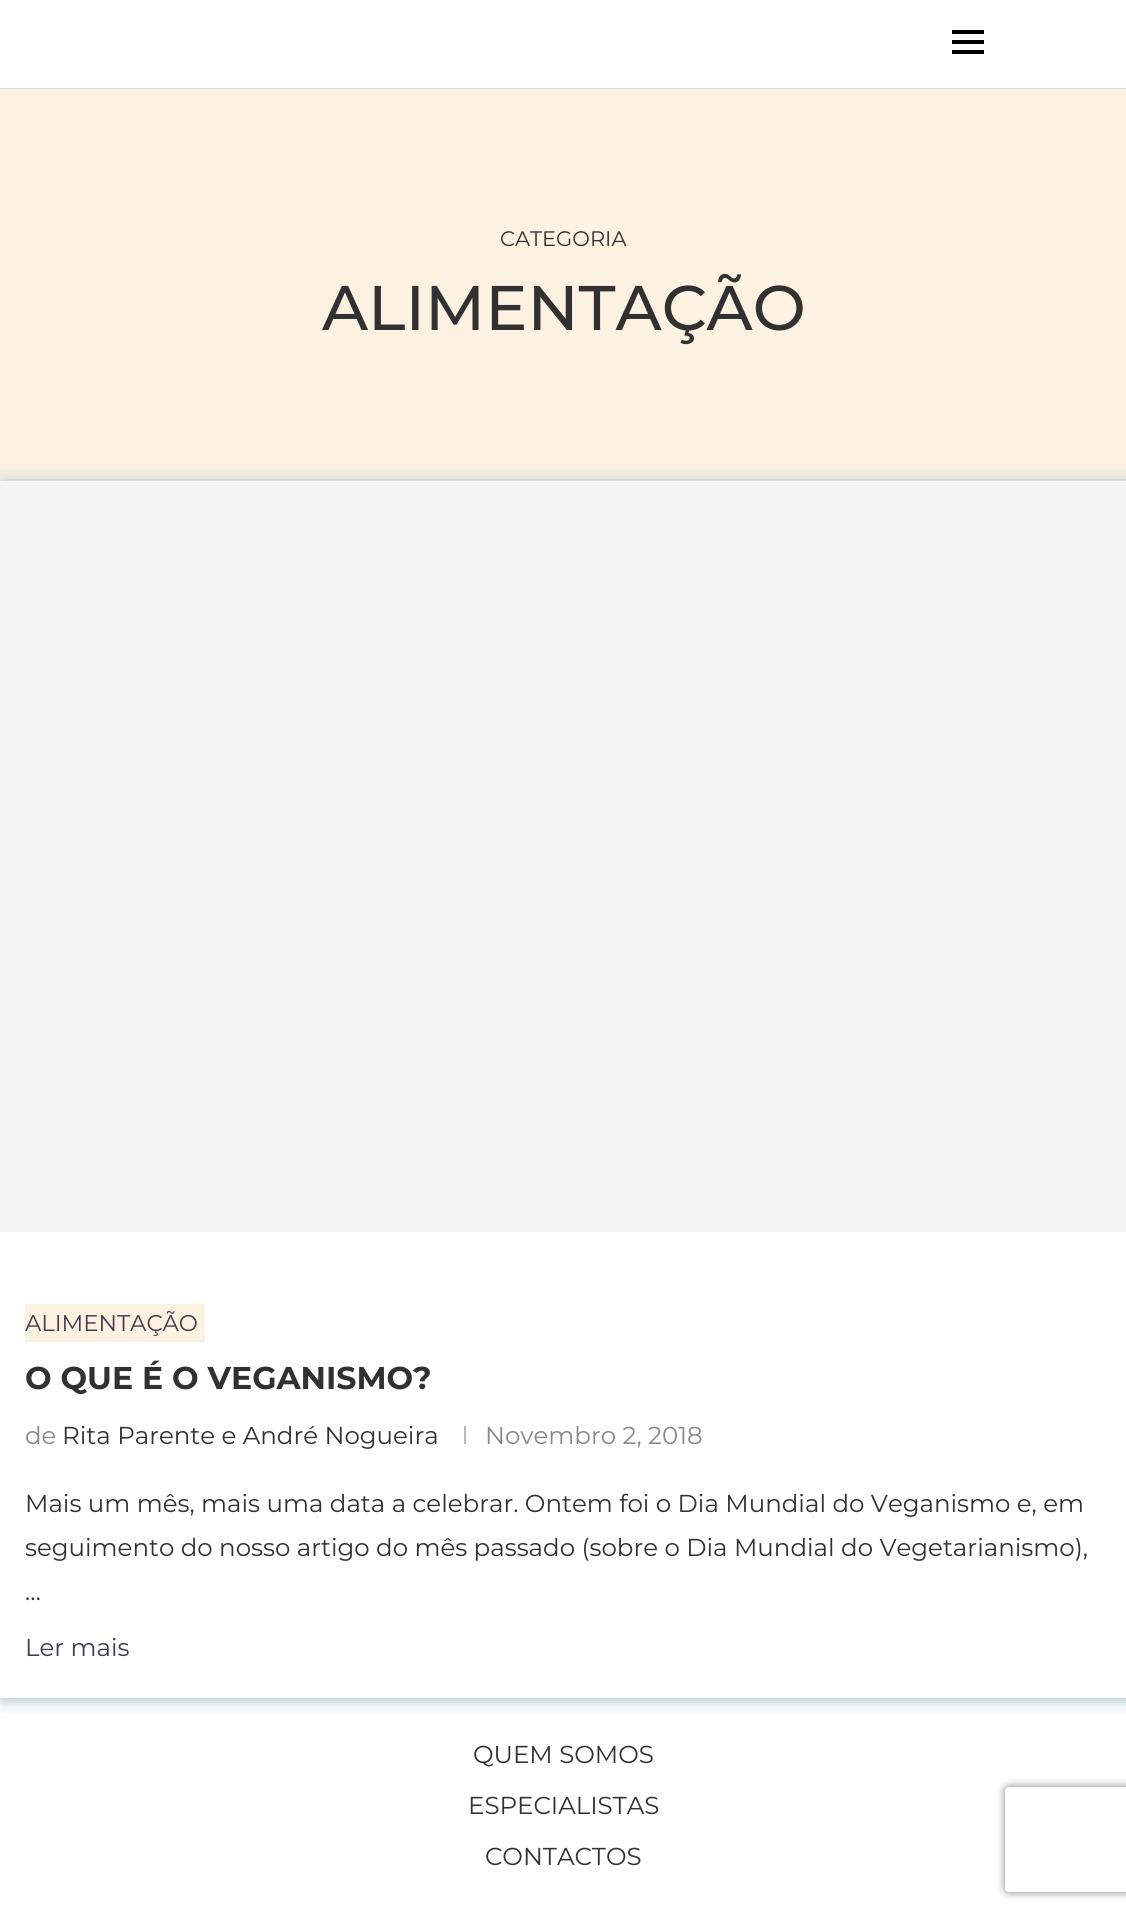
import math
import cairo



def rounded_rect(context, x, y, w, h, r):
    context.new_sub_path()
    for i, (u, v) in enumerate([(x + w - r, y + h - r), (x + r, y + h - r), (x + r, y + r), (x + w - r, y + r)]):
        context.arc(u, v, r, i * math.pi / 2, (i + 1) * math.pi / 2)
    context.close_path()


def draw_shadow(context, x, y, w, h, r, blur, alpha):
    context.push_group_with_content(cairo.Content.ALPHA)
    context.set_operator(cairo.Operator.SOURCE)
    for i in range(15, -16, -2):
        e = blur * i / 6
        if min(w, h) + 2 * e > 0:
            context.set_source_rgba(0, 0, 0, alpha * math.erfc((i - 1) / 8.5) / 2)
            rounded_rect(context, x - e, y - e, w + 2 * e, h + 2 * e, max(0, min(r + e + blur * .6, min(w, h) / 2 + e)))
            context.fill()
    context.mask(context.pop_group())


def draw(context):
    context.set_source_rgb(1, 1, 1)
    context.paint()
    context.set_source_rgb(222 / 255, 222 / 255, 222 / 255)
    context.rectangle(0, 88, 1126, 1)
    context.fill()
    context.set_source_rgb(0, 0, 0)
    context.rectangle(952, 30, 32, 4)
    context.fill()
    context.rectangle(952, 40, 32, 4)
    context.fill()
    context.rectangle(952, 50, 32, 4)
    context.fill()
    context.set_source_rgb(253 / 255, 241 / 255, 226 / 255)
    context.rectangle(0, 89, 1126, 392)
    context.fill()
    context.save()
    context.set_fill_rule(cairo.FillRule.EVEN_ODD)
    context.new_path()
    context.move_to(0, 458)
    context.line_to(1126, 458)
    context.line_to(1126, 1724)
    context.line_to(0, 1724)
    context.close_path()
    context.move_to(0, 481)
    context.line_to(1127, 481)
    context.line_to(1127, 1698)
    context.line_to(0, 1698)
    context.close_path()
    context.clip()
    context.set_source_rgb(159 / 255, 183 / 255, 187 / 255)
    draw_shadow(context, 2, 483, 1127, 1216, 0, 8, 1)
    context.restore()
    context.set_source_rgb(245 / 255, 245 / 255, 245 / 255)
    context.rectangle(0, 481, 1126, 751)
    context.fill()
    context.set_source_rgb(253 / 255, 241 / 255, 226 / 255)
    context.rectangle(25, 1304, 180, 38)
    context.fill()
    context.set_source_rgb(184 / 255, 184 / 255, 184 / 255)
    context.rectangle(464, 1426, 2, 18)
    context.fill()
    context.save()
    context.set_fill_rule(cairo.FillRule.EVEN_ODD)
    context.new_path()
    context.move_to(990, 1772)
    context.line_to(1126, 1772)
    context.line_to(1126, 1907)
    context.line_to(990, 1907)
    context.close_path()
    context.move_to(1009, 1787)
    context.line_to(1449, 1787)
    context.curve_to(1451, 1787, 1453, 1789, 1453, 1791)
    context.line_to(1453, 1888)
    context.curve_to(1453, 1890, 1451, 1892, 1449, 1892)
    context.line_to(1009, 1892)
    context.curve_to(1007, 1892, 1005, 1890, 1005, 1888)
    context.line_to(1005, 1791)
    context.curve_to(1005, 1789, 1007, 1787, 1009, 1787)
    context.close_path()
    context.clip()
    context.set_source_rgb(128 / 255, 128 / 255, 128 / 255)
    draw_shadow(context, 1005, 1787, 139, 105, 4, 4.5, 1)
    context.restore()
    context.select_font_face("Montserrat")
    context.set_font_size(21)
    context.set_source_rgb(49 / 255, 49 / 255, 49 / 255)
    context.move_to(500, 246)
    context.show_text("CATEGORIA")
    context.select_font_face("Montserrat Medium")
    context.set_font_size(63)
    context.move_to(322, 330)
    context.show_text("ALIMENTAÇÃO")
    context.select_font_face("Montserrat")
    context.set_font_size(22.75)
    context.set_source_rgb(63 / 255, 61 / 255, 76 / 255)
    context.move_to(25, 1331)
    context.show_text("ALIMENTAÇÃO")
    context.select_font_face("Montserrat", cairo.FontSlant.NORMAL, cairo.FontWeight.BOLD)
    context.set_font_size(31.5)
    context.set_source_rgb(49 / 255, 49 / 255, 49 / 255)
    context.move_to(25, 1389)
    context.show_text("O QUE É O VEGANISMO?")
    context.select_font_face("Montserrat")
    context.set_font_size(24.5)
    context.set_source_rgb(136 / 255, 136 / 255, 136 / 255)
    context.move_to(25, 1444)
    context.show_text("de")
    context.set_source_rgb(49 / 255, 49 / 255, 49 / 255)
    context.move_to(62, 1444)
    context.show_text("Rita Parente e André Nogueira")
    context.set_source_rgb(136 / 255, 136 / 255, 136 / 255)
    context.move_to(485, 1444)
    context.show_text("Novembro 2, 2018")
    context.set_source_rgb(49 / 255, 49 / 255, 49 / 255)
    context.move_to(25, 1512)
    context.show_text("Mais um mês, mais uma data a celebrar. Ontem foi o Dia Mundial do Veganismo e, em")
    context.move_to(25, 1556)
    context.show_text("seguimento do nosso artigo do mês passado (sobre o Dia Mundial do Vegetarianismo),")
    context.move_to(25, 1600)
    context.show_text("…")
    context.set_source_rgb(63 / 255, 61 / 255, 76 / 255)
    context.move_to(25, 1656)
    context.show_text("Ler mais")
    context.set_source_rgb(49 / 255, 49 / 255, 49 / 255)
    context.move_to(473, 1763)
    context.show_text("QUEM SOMOS")
    context.move_to(468, 1814)
    context.show_text("ESPECIALISTAS")
    context.move_to(485, 1865)
    context.show_text("CONTACTOS")


surface = cairo.ImageSurface(cairo.Format.RGB24, 1126, 1916)
context = cairo.Context(surface)
options = cairo.FontOptions()
options.set_hint_metrics(cairo.HintMetrics.OFF)
options.set_hint_style(cairo.HintStyle.NONE)
context.set_font_options(options)
context.set_miter_limit(4)
draw(context)
surface.write_to_png("out.png")
